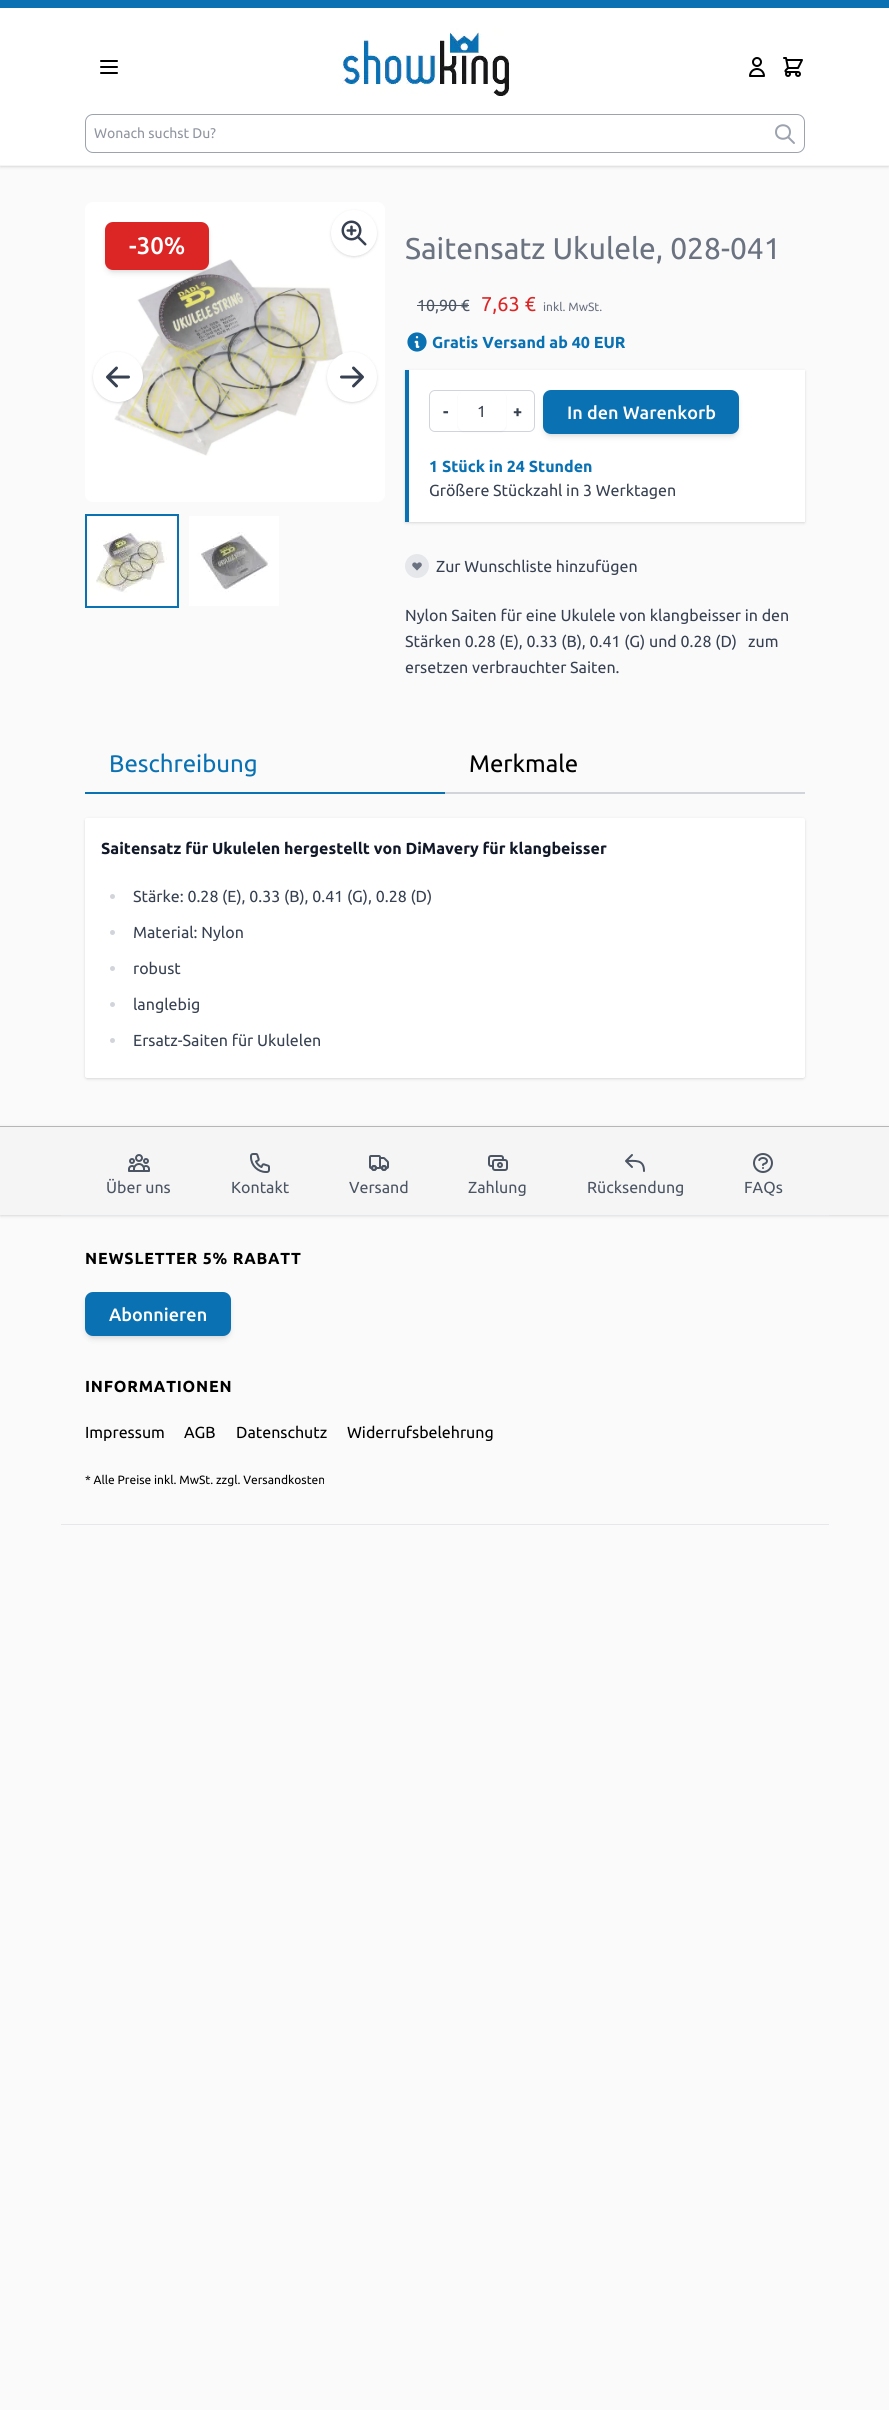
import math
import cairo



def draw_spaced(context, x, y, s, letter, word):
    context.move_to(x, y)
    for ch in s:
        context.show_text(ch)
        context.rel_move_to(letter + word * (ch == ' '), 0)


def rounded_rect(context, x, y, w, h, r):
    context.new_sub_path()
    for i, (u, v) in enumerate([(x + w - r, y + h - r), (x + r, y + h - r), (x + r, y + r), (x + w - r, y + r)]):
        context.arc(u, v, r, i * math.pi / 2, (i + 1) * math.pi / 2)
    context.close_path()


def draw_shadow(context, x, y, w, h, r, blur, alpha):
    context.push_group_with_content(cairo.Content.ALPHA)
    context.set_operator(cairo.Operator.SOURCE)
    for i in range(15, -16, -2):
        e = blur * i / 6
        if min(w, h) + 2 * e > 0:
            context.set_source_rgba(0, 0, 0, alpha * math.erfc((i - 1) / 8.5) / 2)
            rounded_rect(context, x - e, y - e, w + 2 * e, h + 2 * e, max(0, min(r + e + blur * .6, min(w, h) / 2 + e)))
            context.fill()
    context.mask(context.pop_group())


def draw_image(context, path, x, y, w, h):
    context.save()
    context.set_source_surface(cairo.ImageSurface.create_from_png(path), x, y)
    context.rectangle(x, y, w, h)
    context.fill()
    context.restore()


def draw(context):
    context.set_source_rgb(250 / 255, 250 / 255, 250 / 255)
    context.paint()
    context.set_source_rgb(0, 0, 0)
    draw_shadow(context, 1, 2, 887, 164, 0, 1, 0.1)
    draw_shadow(context, 0, 1, 889, 166, 0, 1.5, 0.1)
    context.set_source_rgb(1, 1, 1)
    context.rectangle(0, 8, 889, 157)
    context.fill()
    context.set_source_rgb(10 / 255, 113 / 255, 179 / 255)
    context.rectangle(0, 0, 889, 8)
    context.fill()
    context.set_source_rgb(245 / 255, 245 / 255, 245 / 255)
    context.rectangle(0, 165, 889, 1)
    context.fill()
    context.new_path()
    context.move_to(101, 61)
    context.line_to(117, 61)
    context.move_to(101, 67)
    context.line_to(117, 67)
    context.move_to(101, 73)
    context.line_to(117, 73)
    context.set_source_rgb(0, 0, 0)
    context.set_line_cap(cairo.LineCap.ROUND)
    context.set_line_join(cairo.LineJoin.ROUND)
    context.stroke()
    draw_image(context, "images/1.png", 338, 28, 172, 68)
    draw_image(context, "images/2.png", 749, 57, 16, 20)
    draw_image(context, "images/3.png", 783, 57, 20, 20)
    rounded_rect(context, 85.5, 114.5, 719, 38, 7.5)
    context.set_source_rgb(156 / 255, 163 / 255, 175 / 255)
    context.set_line_width(1)
    context.set_line_cap(cairo.LineCap.BUTT)
    context.set_line_join(cairo.LineJoin.MITER)
    context.stroke()
    context.new_path()
    context.move_to(794, 143)
    context.line_to(788, 137)
    context.move_to(790, 132)
    context.curve_to(790, 141, 776, 141, 776, 132)
    context.curve_to(776, 123, 790, 123, 790, 132)
    context.close_path()
    context.set_line_width(2)
    context.set_line_cap(cairo.LineCap.ROUND)
    context.set_line_join(cairo.LineJoin.ROUND)
    context.stroke()
    context.set_source_rgb(1, 1, 1)
    rounded_rect(context, 85, 202, 300, 300, 8)
    context.fill()
    draw_image(context, "images/5.png", 114, 259, 230, 197)
    context.set_source_rgb(0, 0, 0)
    draw_shadow(context, 332, 212, 44, 44, 22, 1, 0.1)
    draw_shadow(context, 331, 211, 46, 46, 23, 1.5, 0.1)
    context.set_source_rgb(1, 1, 1)
    context.arc(354, 233, 23, 0, 2 * math.pi)
    context.fill()
    draw_image(context, "images/4.png", 341, 220, 26, 26)
    context.set_source_rgb(0, 0, 0)
    draw_shadow(context, 94, 354, 48, 48, 24, 1, 0.1)
    draw_shadow(context, 93, 353, 50, 50, 25, 1.5, 0.1)
    context.set_source_rgb(1, 1, 1)
    context.arc(118, 377, 25, 0, 2 * math.pi)
    context.fill()
    draw_image(context, "images/6.png", 106, 366, 24, 22)
    context.set_source_rgb(0, 0, 0)
    draw_shadow(context, 328, 354, 48, 48, 24, 1, 0.1)
    draw_shadow(context, 327, 353, 50, 50, 25, 1.5, 0.1)
    context.set_source_rgb(1, 1, 1)
    context.arc(352, 377, 25, 0, 2 * math.pi)
    context.fill()
    draw_image(context, "images/7.png", 340, 366, 24, 22)
    context.rectangle(86, 515, 92, 92)
    context.set_source_rgb(10 / 255, 113 / 255, 179 / 255)
    context.set_line_cap(cairo.LineCap.BUTT)
    context.set_line_join(cairo.LineJoin.MITER)
    context.stroke()
    draw_image(context, "images/8.png", 87, 516, 90, 90)
    draw_image(context, "images/9.png", 189, 516, 90, 90)
    context.set_source_rgb(75 / 255, 85 / 255, 99 / 255)
    context.rectangle(417, 305, 52, 1)
    context.fill()
    draw_image(context, "images/10.png", 407, 332, 20, 20)
    context.set_source_rgb(0, 0, 0)
    draw_shadow(context, 406, 372, 398, 150, 0, 1, 0.1)
    draw_shadow(context, 405, 371, 400, 152, 0, 1.5, 0.1)
    context.set_source_rgb(1, 1, 1)
    context.rectangle(409, 370, 396, 152)
    context.fill()
    context.set_source_rgb(10 / 255, 113 / 255, 179 / 255)
    context.rectangle(405, 370, 4, 152)
    context.fill()
    rounded_rect(context, 429.5, 390.5, 105, 41, 5.5)
    context.set_source_rgb(209 / 255, 213 / 255, 219 / 255)
    context.set_line_width(1)
    context.stroke()
    context.set_source_rgb(0, 0, 0)
    draw_shadow(context, 458, 392, 48, 40, 6, 1, 0.05)
    context.set_source_rgb(1, 1, 1)
    rounded_rect(context, 458, 391, 48, 40, 6)
    context.fill()
    context.set_source_rgb(0, 0, 0)
    draw_shadow(context, 545, 394, 192, 40, 6, 2, 0.1)
    draw_shadow(context, 544, 395, 194, 42, 7, 3, 0.1)
    context.set_source_rgb(10 / 255, 113 / 255, 179 / 255)
    rounded_rect(context, 543, 390, 196, 44, 8)
    context.fill()
    context.set_source_rgb(229 / 255, 231 / 255, 235 / 255)
    context.arc(417, 566, 12, 0, 2 * math.pi)
    context.fill()
    draw_image(context, "images/11.png", 412, 562, 10, 9)
    context.set_source_rgb(0, 0, 0)
    draw_shadow(context, 107, 226, 100, 44, 6, 2, 0.1)
    draw_shadow(context, 106, 227, 102, 46, 7, 3, 0.1)
    context.set_source_rgb(220 / 255, 38 / 255, 38 / 255)
    rounded_rect(context, 105, 222, 104, 48, 8)
    context.fill()
    context.set_source_rgb(10 / 255, 113 / 255, 179 / 255)
    context.rectangle(85, 792, 360, 2)
    context.fill()
    context.set_source_rgb(209 / 255, 213 / 255, 219 / 255)
    context.rectangle(445, 792, 360, 2)
    context.fill()
    context.set_source_rgb(0, 0, 0)
    draw_shadow(context, 86, 820, 718, 258, 1, 1, 0.1)
    draw_shadow(context, 85, 819, 720, 260, 2, 1.5, 0.1)
    context.set_source_rgb(1, 1, 1)
    rounded_rect(context, 85, 818, 720, 260, 2)
    context.fill()
    context.set_source_rgb(209 / 255, 213 / 255, 219 / 255)
    context.arc(112.5, 896.5, 2.5, 0, 2 * math.pi)
    context.fill()
    context.arc(112.5, 932.5, 2.5, 0, 2 * math.pi)
    context.fill()
    context.arc(112.5, 968.5, 2.5, 0, 2 * math.pi)
    context.fill()
    context.arc(112.5, 1004.5, 2.5, 0, 2 * math.pi)
    context.fill()
    context.arc(112.5, 1040.5, 2.5, 0, 2 * math.pi)
    context.fill()
    context.set_source_rgb(0, 0, 0)
    draw_shadow(context, 1, 1128, 887, 87, 0, 1, 0.1)
    draw_shadow(context, 0, 1127, 889, 89, 0, 1.5, 0.1)
    context.set_source_rgb(245 / 255, 245 / 255, 245 / 255)
    context.rectangle(0, 1127, 889, 88)
    context.fill()
    context.set_source_rgb(182 / 255, 182 / 255, 182 / 255)
    context.rectangle(0, 1126, 889, 1)
    context.fill()
    draw_image(context, "images/12.png", 128, 1154, 22, 18)
    draw_image(context, "images/13.png", 250, 1153, 20, 20)
    draw_image(context, "images/14.png", 369, 1155, 20, 16)
    draw_image(context, "images/15.png", 488, 1155, 20, 16)
    context.new_path()
    context.move_to(626, 1161)
    context.curve_to(635, 1161, 644, 1159, 644, 1171)
    context.move_to(626, 1161)
    context.line_to(632, 1167)
    context.move_to(626, 1161)
    context.line_to(632, 1155)
    context.set_source_rgb(75 / 255, 85 / 255, 99 / 255)
    context.set_line_width(2)
    context.set_line_cap(cairo.LineCap.ROUND)
    context.set_line_join(cairo.LineJoin.ROUND)
    context.stroke()
    draw_image(context, "images/16.png", 753, 1153, 20, 20)
    context.set_source_rgb(229 / 255, 231 / 255, 235 / 255)
    context.rectangle(61, 1215, 768, 1)
    context.fill()
    context.rectangle(61, 1524, 768, 1)
    context.fill()
    context.set_source_rgb(0, 0, 0)
    draw_shadow(context, 87, 1296, 142, 40, 6, 2, 0.1)
    draw_shadow(context, 86, 1297, 144, 42, 7, 3, 0.1)
    context.set_source_rgb(10 / 255, 113 / 255, 179 / 255)
    rounded_rect(context, 85, 1292, 146, 44, 8)
    context.fill()
    context.select_font_face("Ubuntu")
    context.set_font_size(14)
    context.set_source_rgb(144 / 255, 149 / 255, 160 / 255)
    context.move_to(94, 138)
    context.show_text("Wonach suchst Du?")
    context.set_font_size(30)
    context.set_source_rgb(107 / 255, 114 / 255, 128 / 255)
    context.move_to(405, 259)
    context.show_text("Saitensatz Ukulele, 028-041")
    context.set_font_size(16)
    context.set_source_rgb(75 / 255, 85 / 255, 99 / 255)
    context.move_to(417, 311)
    context.show_text("10,90 €")
    context.set_font_size(20)
    context.set_source_rgb(220 / 255, 38 / 255, 38 / 255)
    context.move_to(481, 311)
    context.show_text("7,63 €")
    context.set_font_size(12)
    context.set_source_rgb(107 / 255, 114 / 255, 128 / 255)
    context.move_to(543, 311)
    context.show_text("inkl. MwSt.")
    context.select_font_face("Ubuntu", cairo.FontSlant.NORMAL, cairo.FontWeight.BOLD)
    context.set_font_size(16)
    context.set_source_rgb(10 / 255, 113 / 255, 179 / 255)
    context.move_to(432, 348)
    context.show_text("Gratis Versand ab 40 EUR")
    context.set_source_rgb(55 / 255, 65 / 255, 81 / 255)
    context.move_to(443, 417)
    context.show_text("-")
    context.select_font_face("Ubuntu")
    context.move_to(477, 417)
    context.show_text("1")
    context.select_font_face("Ubuntu", cairo.FontSlant.NORMAL, cairo.FontWeight.BOLD)
    context.move_to(513, 417)
    context.show_text("+")
    context.select_font_face("Ubuntu Medium")
    context.set_font_size(18)
    context.set_source_rgb(1, 1, 1)
    context.move_to(567, 419)
    context.show_text("In den Warenkorb")
    context.select_font_face("Ubuntu", cairo.FontSlant.NORMAL, cairo.FontWeight.BOLD)
    context.set_font_size(16)
    context.set_source_rgb(10 / 255, 113 / 255, 179 / 255)
    context.move_to(429, 472)
    context.show_text("1 Stück in 24 Stunden")
    context.select_font_face("Ubuntu")
    context.set_source_rgb(55 / 255, 65 / 255, 81 / 255)
    context.move_to(429, 496)
    context.show_text("Größere Stückzahl in 3 Werktagen")
    context.move_to(436, 572)
    context.show_text("Zur Wunschliste hinzufügen")
    context.move_to(405, 621)
    context.show_text("Nylon Saiten für eine Ukulele von klangbeisser in den")
    context.move_to(405, 647)
    context.show_text("Stärken 0.28 (E), 0.33 (B), 0.41 (G) und 0.28 (D)   zum")
    context.move_to(405, 673)
    context.show_text("ersetzen verbrauchter Saiten.")
    context.select_font_face("Ubuntu Medium")
    context.set_font_size(24)
    context.set_source_rgb(1, 1, 1)
    context.move_to(129, 254)
    context.show_text("-30%")
    context.select_font_face("Ubuntu")
    context.set_source_rgb(10 / 255, 113 / 255, 179 / 255)
    context.move_to(109, 772)
    context.show_text("Beschreibung")
    context.set_source_rgb(0, 0, 0)
    context.move_to(469, 772)
    context.show_text("Merkmale")
    context.select_font_face("Ubuntu", cairo.FontSlant.NORMAL, cairo.FontWeight.BOLD)
    context.set_font_size(16)
    context.set_source_rgb(17 / 255, 24 / 255, 39 / 255)
    context.move_to(101, 854)
    context.show_text("Saitensatz für Ukulelen hergestellt von DiMavery für klangbeisser")
    context.select_font_face("Ubuntu")
    context.set_source_rgb(55 / 255, 65 / 255, 81 / 255)
    context.move_to(133, 902)
    context.show_text("Stärke: 0.28 (E), 0.33 (B), 0.41 (G), 0.28 (D)")
    context.move_to(133, 938)
    context.show_text("Material: Nylon")
    context.move_to(133, 974)
    context.show_text("robust")
    context.move_to(133, 1010)
    context.show_text("langlebig")
    context.move_to(133, 1046)
    context.show_text("Ersatz-Saiten für Ukulelen")
    context.set_source_rgb(75 / 255, 85 / 255, 99 / 255)
    context.move_to(106, 1193)
    context.show_text("Über uns")
    context.move_to(231, 1193)
    context.show_text("Kontakt")
    context.move_to(349, 1193)
    context.show_text("Versand")
    context.move_to(468, 1193)
    context.show_text("Zahlung")
    context.move_to(587, 1193)
    context.show_text("Rücksendung")
    context.move_to(744, 1193)
    context.show_text("FAQs")
    context.select_font_face("Ubuntu", cairo.FontSlant.NORMAL, cairo.FontWeight.BOLD)
    context.set_source_rgb(0, 0, 0)
    draw_spaced(context, 85, 1264, "NEWSLETTER 5% RABATT", 0.8, 0)
    context.select_font_face("Ubuntu Medium")
    context.set_font_size(18)
    context.set_source_rgb(1, 1, 1)
    context.move_to(109, 1321)
    context.show_text("Abonnieren")
    context.select_font_face("Ubuntu", cairo.FontSlant.NORMAL, cairo.FontWeight.BOLD)
    context.set_font_size(16)
    context.set_source_rgb(0, 0, 0)
    draw_spaced(context, 85, 1392, "INFORMATIONEN", 0.8, 0)
    context.select_font_face("Ubuntu")
    context.move_to(85, 1438)
    context.show_text("Impressum")
    context.move_to(184, 1438)
    context.show_text("AGB")
    context.move_to(236, 1438)
    context.show_text("Datenschutz")
    context.move_to(347, 1438)
    context.show_text("Widerrufsbelehrung")
    context.set_font_size(12)
    context.move_to(85, 1484)
    context.show_text("* Alle Preise inkl. MwSt. zzgl. Versandkosten")


surface = cairo.ImageSurface(cairo.Format.RGB24, 889, 2410)
context = cairo.Context(surface)
options = cairo.FontOptions()
options.set_hint_metrics(cairo.HintMetrics.OFF)
options.set_hint_style(cairo.HintStyle.NONE)
context.set_font_options(options)
context.set_miter_limit(4)
draw(context)
surface.write_to_png("out.png")
